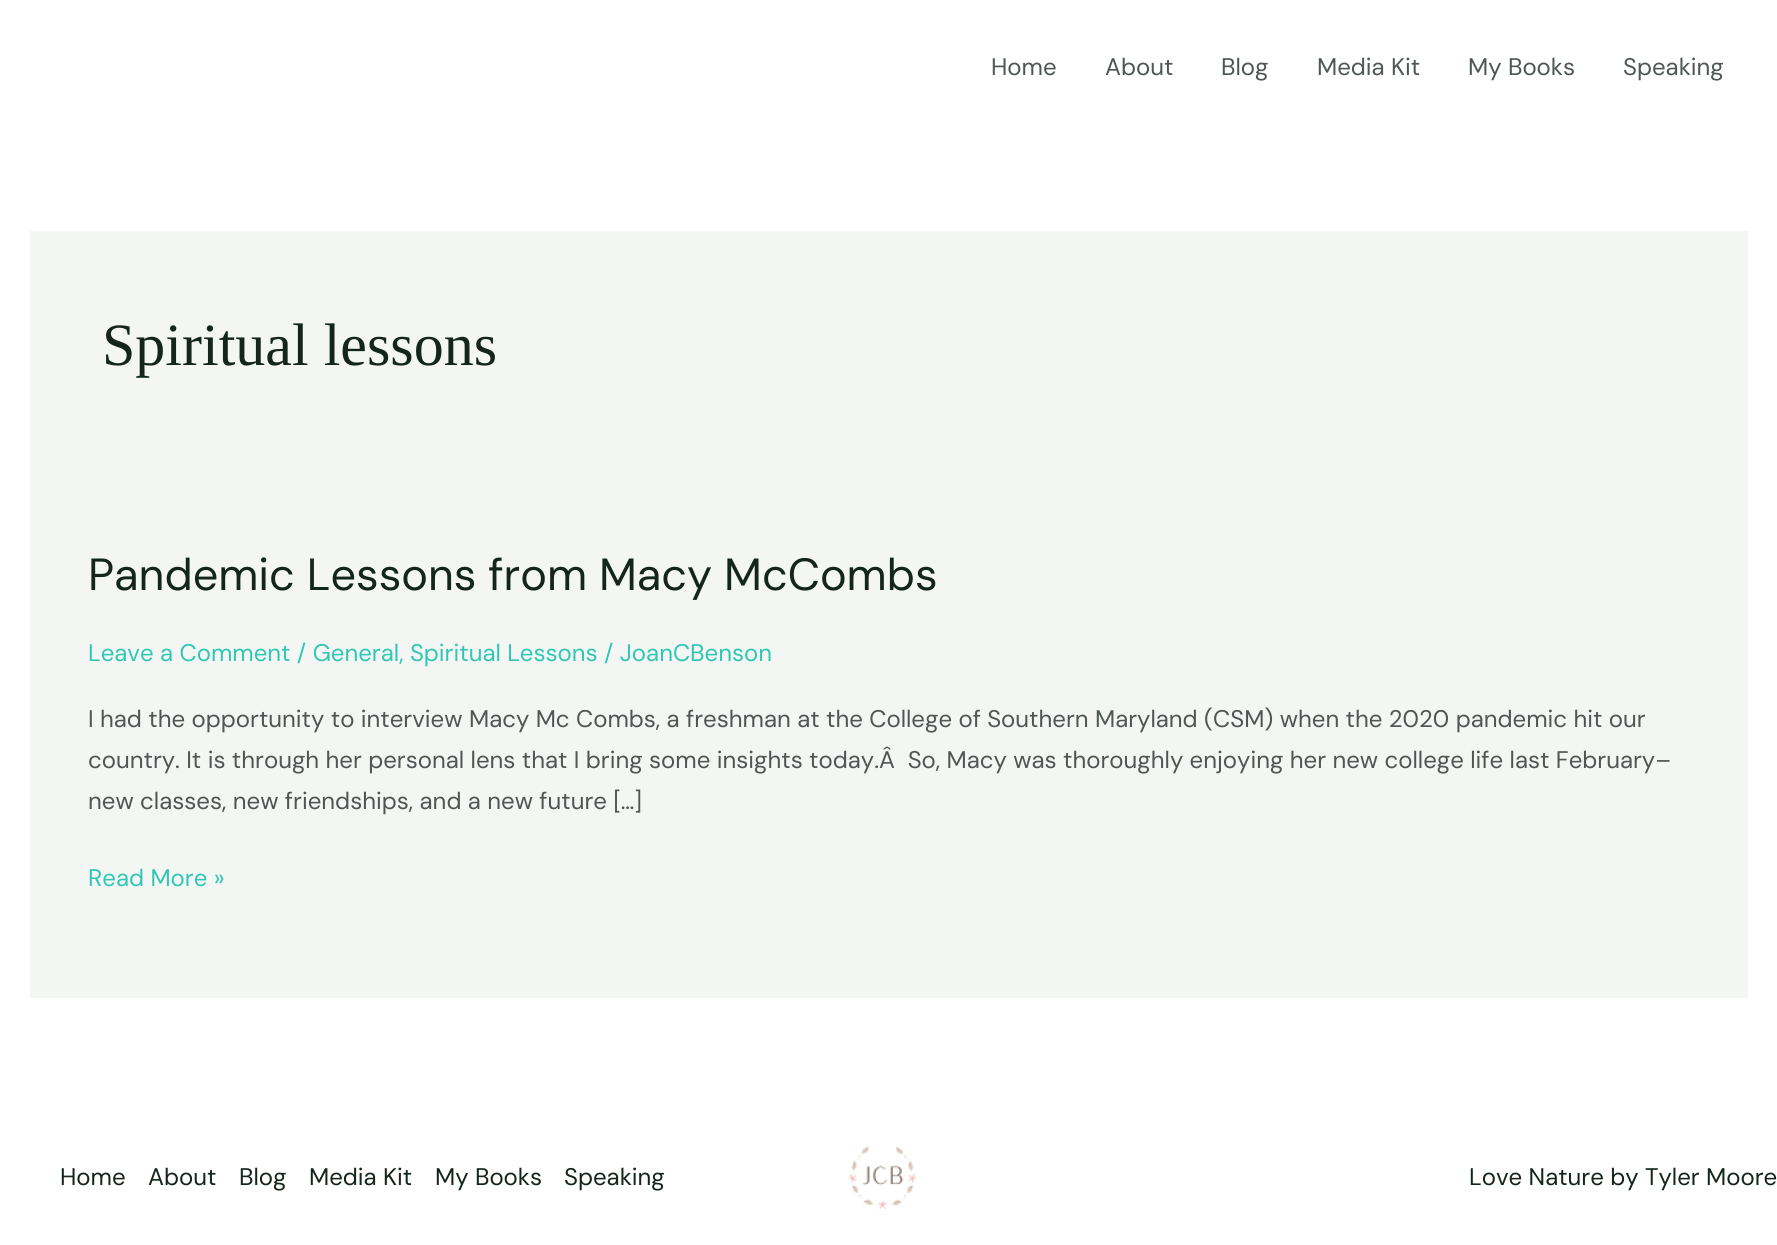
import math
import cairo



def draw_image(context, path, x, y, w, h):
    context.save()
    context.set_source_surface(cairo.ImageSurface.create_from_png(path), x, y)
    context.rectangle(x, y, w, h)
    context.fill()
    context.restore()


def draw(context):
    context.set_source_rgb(1, 1, 1)
    context.paint()
    context.set_source_rgb(243 / 255, 246 / 255, 243 / 255)
    context.rectangle(30, 231, 1718, 767)
    context.fill()
    draw_image(context, "images/1.png", 848, 1146, 68, 63)
    context.select_font_face("DM Sans")
    context.set_font_size(24)
    context.set_source_rgb(79 / 255, 86 / 255, 85 / 255)
    context.move_to(991, 75)
    context.show_text("Home")
    context.move_to(1105, 75)
    context.show_text("About")
    context.move_to(1221, 75)
    context.show_text("Blog")
    context.move_to(1317, 75)
    context.show_text("Media Kit")
    context.move_to(1468, 75)
    context.show_text("My Books")
    context.move_to(1623, 75)
    context.show_text("Speaking")
    context.select_font_face("Liberation Serif")
    context.set_font_size(60)
    context.set_source_rgb(20 / 255, 38 / 255, 28 / 255)
    context.move_to(102, 365)
    context.show_text("Spiritual lessons")
    context.select_font_face("DM Sans")
    context.set_font_size(45)
    context.move_to(88, 590)
    context.show_text("Pandemic Lessons from Macy McCombs")
    context.set_font_size(24)
    context.set_source_rgb(48 / 255, 199 / 255, 181 / 255)
    context.move_to(88, 661)
    context.show_text("Leave a Comment / General, Spiritual Lessons / JoanCBenson")
    context.set_source_rgb(79 / 255, 86 / 255, 85 / 255)
    context.move_to(88, 727)
    context.show_text("I had the opportunity to interview Macy Mc Combs, a freshman at the College of Southern Maryland (CSM) when the 2020 pandemic hit our")
    context.move_to(88, 768)
    context.show_text("country. It is through her personal lens that I bring some insights today.Â  So, Macy was thoroughly enjoying her new college life last February–")
    context.move_to(88, 809)
    context.show_text("new classes, new friendships, and a new future […]")
    context.set_source_rgb(48 / 255, 199 / 255, 181 / 255)
    context.move_to(88, 886)
    context.show_text("Read More »")
    context.set_source_rgb(20 / 255, 38 / 255, 28 / 255)
    context.move_to(60, 1185)
    context.show_text("Home")
    context.move_to(148, 1185)
    context.show_text("About")
    context.move_to(239, 1185)
    context.show_text("Blog")
    context.move_to(309, 1185)
    context.show_text("Media Kit")
    context.move_to(435, 1185)
    context.show_text("My Books")
    context.move_to(564, 1185)
    context.show_text("Speaking")
    context.move_to(1469, 1185)
    context.show_text("Love Nature by Tyler Moore")


surface = cairo.ImageSurface(cairo.Format.RGB24, 1777, 1245)
context = cairo.Context(surface)
options = cairo.FontOptions()
options.set_hint_metrics(cairo.HintMetrics.OFF)
options.set_hint_style(cairo.HintStyle.NONE)
context.set_font_options(options)
context.set_miter_limit(4)
draw(context)
surface.write_to_png("out.png")
